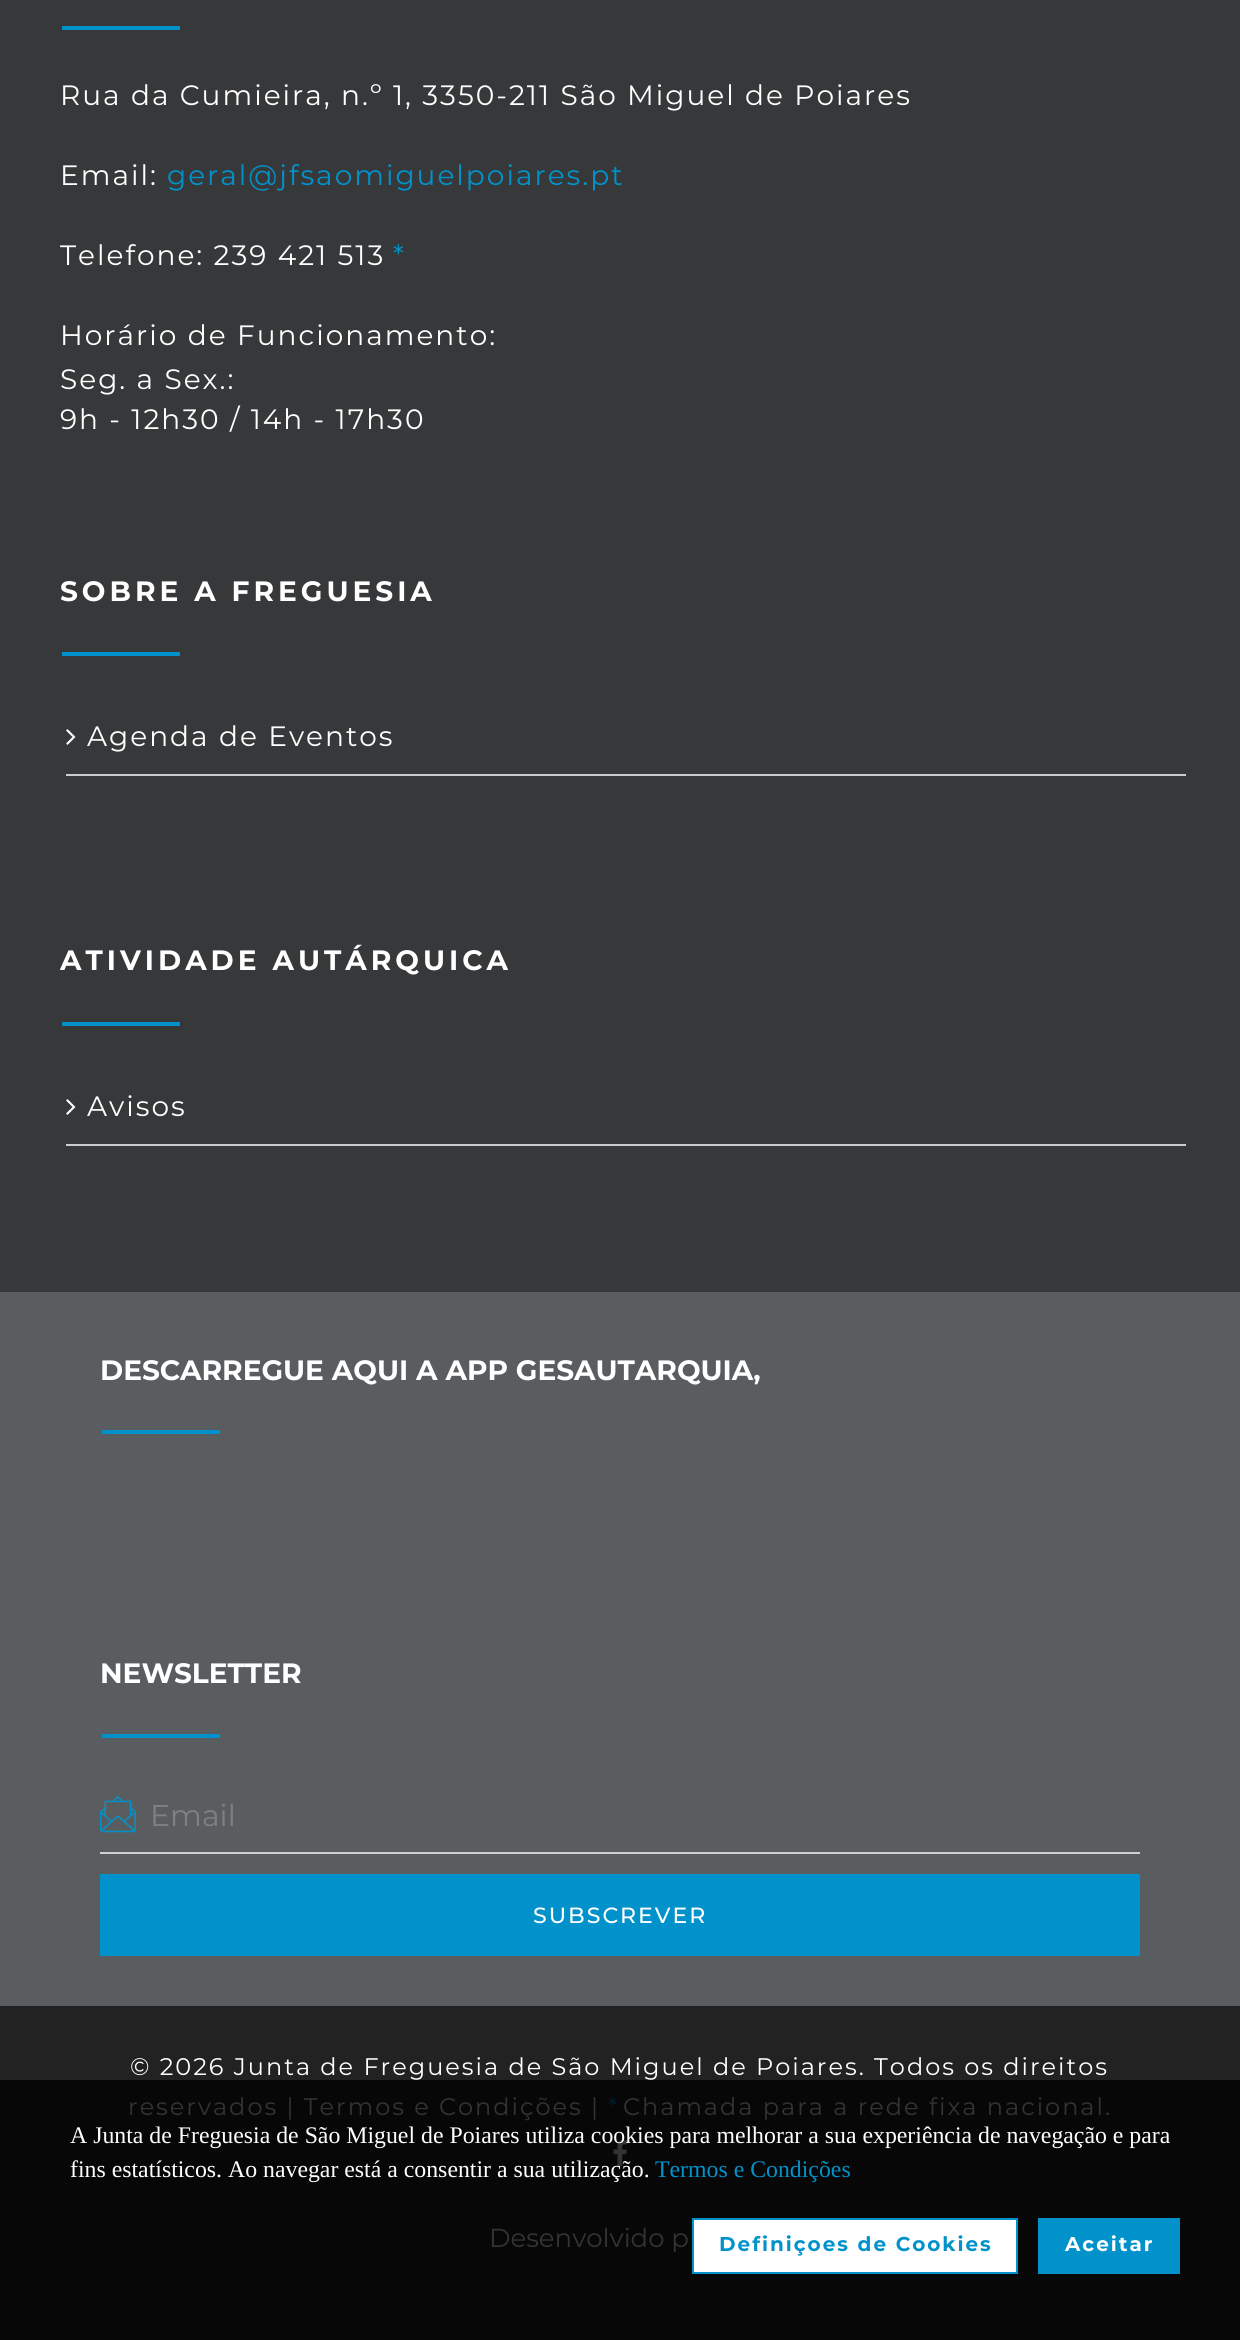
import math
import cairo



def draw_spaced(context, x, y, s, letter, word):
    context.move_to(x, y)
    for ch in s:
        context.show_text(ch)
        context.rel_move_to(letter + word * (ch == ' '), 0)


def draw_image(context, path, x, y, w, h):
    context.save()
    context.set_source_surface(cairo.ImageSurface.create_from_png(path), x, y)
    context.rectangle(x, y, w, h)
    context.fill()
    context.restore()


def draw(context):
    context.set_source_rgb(90 / 255, 93 / 255, 95 / 255)
    context.paint()
    context.set_source_rgb(54 / 255, 56 / 255, 57 / 255)
    context.rectangle(0, 0, 1240, 1292)
    context.fill()
    context.set_source_rgb(2 / 255, 146 / 255, 203 / 255)
    context.rectangle(62, 26, 118, 4)
    context.fill()
    context.rectangle(62, 652, 118, 4)
    context.fill()
    context.set_source_rgb(204 / 255, 204 / 255, 204 / 255)
    context.rectangle(66, 774, 1120, 2)
    context.fill()
    draw_image(context, "images/1.png", 66, 729, 10, 16)
    context.set_source_rgb(2 / 255, 146 / 255, 203 / 255)
    context.rectangle(62, 1022, 118, 4)
    context.fill()
    context.set_source_rgb(204 / 255, 204 / 255, 204 / 255)
    context.rectangle(66, 1144, 1120, 2)
    context.fill()
    draw_image(context, "images/1.png", 66, 1099, 10, 16)
    context.set_source_rgb(2 / 255, 146 / 255, 203 / 255)
    context.rectangle(102, 1430, 118, 4)
    context.fill()
    context.rectangle(102, 1734, 118, 4)
    context.fill()
    draw_image(context, "images/2.png", 100, 1796, 36, 37)
    context.set_source_rgb(208 / 255, 208 / 255, 208 / 255)
    context.rectangle(100, 1852, 1040, 2)
    context.fill()
    context.set_source_rgb(2 / 255, 146 / 255, 203 / 255)
    context.rectangle(100, 1874, 1040, 82)
    context.fill()
    context.set_source_rgb(34 / 255, 34 / 255, 34 / 255)
    context.rectangle(0, 2006, 1240, 74)
    context.fill()
    context.set_source_rgb(7 / 255, 7 / 255, 7 / 255)
    context.rectangle(0, 2080, 1240, 260)
    context.fill()
    draw_image(context, "images/3.png", 613, 2140, 14, 26)
    context.set_source_rgb(1, 1, 1)
    context.rectangle(693, 2219, 324, 54)
    context.fill_preserve()
    context.set_source_rgb(2 / 255, 146 / 255, 203 / 255)
    context.stroke()
    context.rectangle(1038, 2218, 142, 56)
    context.fill()
    context.select_font_face("Montserrat")
    context.set_font_size(28)
    context.set_source_rgb(1, 1, 1)
    draw_spaced(context, 60, 105, "Rua da Cumieira, n.º 1, 3350-211 São Miguel de Poiares", 2, 0)
    draw_spaced(context, 60, 185, "Email:", 2, 0)
    context.set_source_rgb(2 / 255, 146 / 255, 203 / 255)
    draw_spaced(context, 167, 185, "geral@jfsaomiguelpoiares.pt", 2, 0)
    context.set_source_rgb(1, 1, 1)
    draw_spaced(context, 60, 265, "Telefone: 239 421 513", 2, 0)
    context.set_source_rgb(2 / 255, 146 / 255, 203 / 255)
    draw_spaced(context, 393, 265, "*", 2, 0)
    context.set_source_rgb(1, 1, 1)
    draw_spaced(context, 60, 345, "Horário de Funcionamento:", 2, 0)
    draw_spaced(context, 60, 389, "Seg. a Sex.:", 2, 0)
    draw_spaced(context, 60, 429, "9h - 12h30 / 14h - 17h30", 2, 0)
    context.select_font_face("Montserrat", cairo.FontSlant.NORMAL, cairo.FontWeight.BOLD)
    draw_spaced(context, 60, 601, "SOBRE A FREGUESIA", 4, 0)
    context.select_font_face("Montserrat")
    draw_spaced(context, 87, 746, "Agenda de Eventos", 2, 0)
    context.select_font_face("Montserrat", cairo.FontSlant.NORMAL, cairo.FontWeight.BOLD)
    draw_spaced(context, 60, 970, "ATIVIDADE AUTÁRQUICA", 4, 0)
    context.select_font_face("Montserrat")
    draw_spaced(context, 87, 1116, "Avisos", 2, 0)
    context.select_font_face("Montserrat", cairo.FontSlant.NORMAL, cairo.FontWeight.BOLD)
    context.move_to(100, 1380)
    context.show_text("DESCARREGUE AQUI A APP GESAUTARQUIA,")
    context.move_to(100, 1683)
    context.show_text("NEWSLETTER")
    context.select_font_face("Montserrat")
    context.set_font_size(30)
    context.set_source_rgb(128 / 255, 128 / 255, 128 / 255)
    context.move_to(150, 1826)
    context.show_text("Email")
    context.select_font_face("Montserrat Medium")
    context.set_font_size(22)
    context.set_source_rgb(1, 1, 1)
    draw_spaced(context, 533, 1923, "SUBSCREVER", 2, 0)
    context.select_font_face("Montserrat")
    context.set_font_size(24)
    draw_spaced(context, 130, 2075, "© 2026 Junta de Freguesia de São Miguel de Poiares. Todos os direitos", 2, 0)
    context.set_source_rgb(51 / 255, 51 / 255, 51 / 255)
    draw_spaced(context, 128, 2115, "reservados | Termos e Condições |", 2, 0)
    context.set_source_rgb(0, 29 / 255, 41 / 255)
    draw_spaced(context, 608, 2115, "*", 2, 0)
    context.set_source_rgb(51 / 255, 51 / 255, 51 / 255)
    draw_spaced(context, 623, 2115, "Chamada para a rede fixa nacional.", 2, 0)
    context.set_font_size(26)
    context.move_to(489, 2247)
    context.show_text("Desenvolvido p")
    context.select_font_face("Liberation Serif")
    context.set_font_size(23.8)
    context.set_source_rgb(1, 1, 1)
    context.move_to(70, 2143)
    context.show_text("A Junta de Freguesia de São Miguel de Poiares utiliza cookies para melhorar a sua experiência de navegação e para")
    context.move_to(70, 2177)
    context.show_text("fins estatísticos. Ao navegar está a consentir a sua utilização.")
    context.set_source_rgb(2 / 255, 146 / 255, 203 / 255)
    context.move_to(655, 2177)
    context.show_text("Termos e Condições")
    context.select_font_face("Montserrat", cairo.FontSlant.NORMAL, cairo.FontWeight.BOLD)
    context.set_font_size(20)
    draw_spaced(context, 719, 2251, "Definiçoes de Cookies", 2, 0)
    context.set_source_rgb(1, 1, 1)
    draw_spaced(context, 1065, 2251, "Aceitar", 2, 0)


surface = cairo.ImageSurface(cairo.Format.RGB24, 1240, 2340)
context = cairo.Context(surface)
options = cairo.FontOptions()
options.set_hint_metrics(cairo.HintMetrics.OFF)
options.set_hint_style(cairo.HintStyle.NONE)
context.set_font_options(options)
context.set_miter_limit(4)
draw(context)
surface.write_to_png("out.png")
